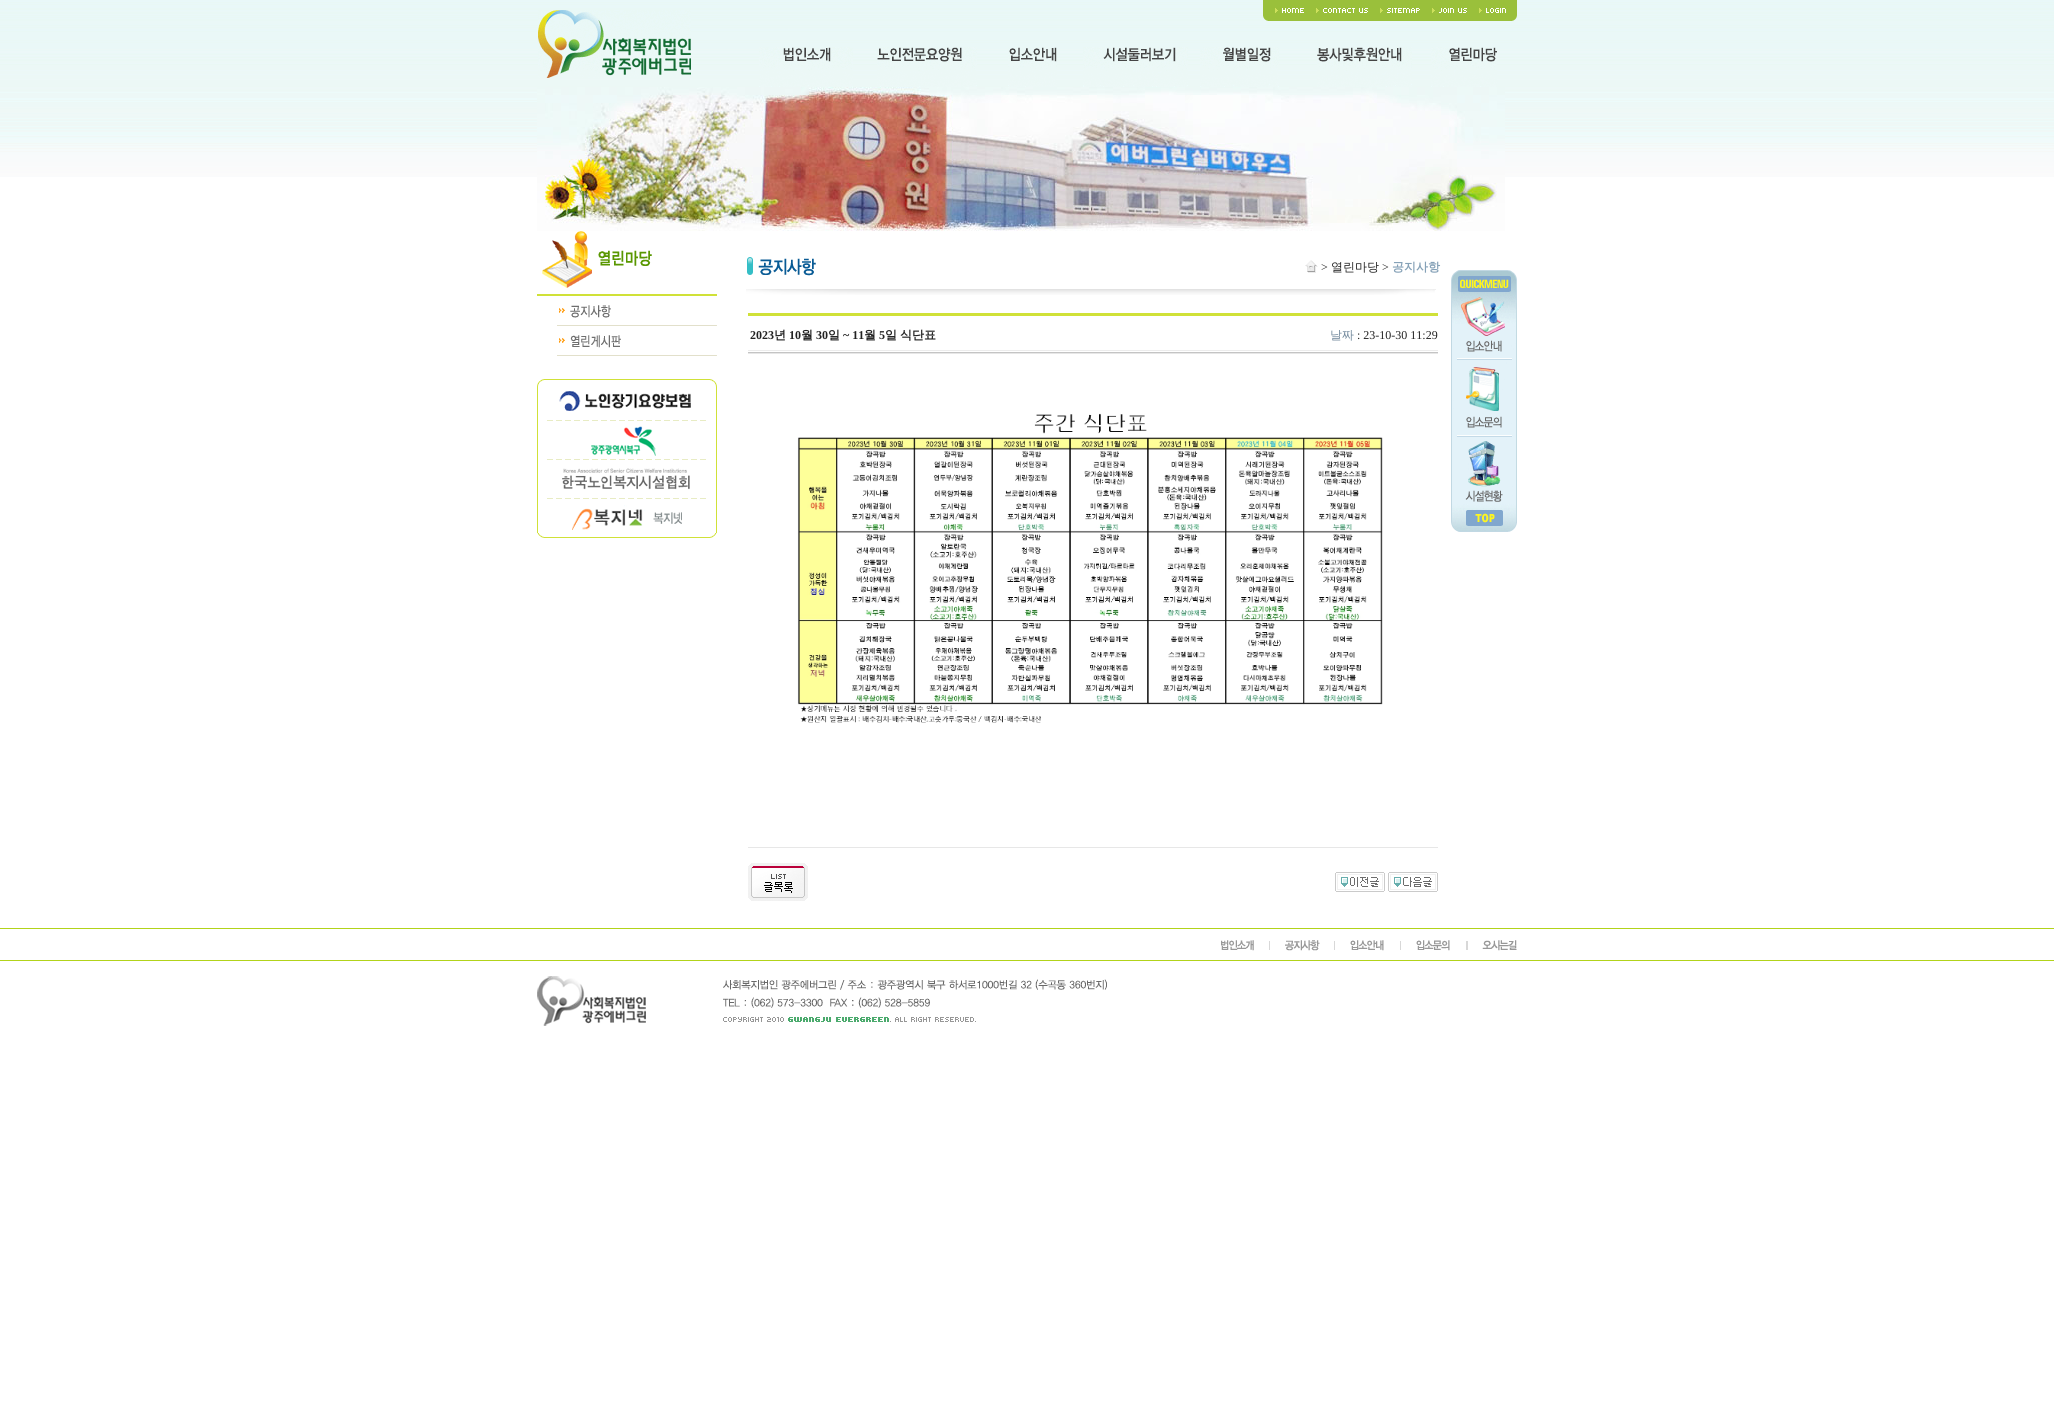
import math
import cairo



def draw_image(context, path, x, y, w, h):
    context.save()
    context.set_source_surface(cairo.ImageSurface.create_from_png(path), x, y)
    context.rectangle(x, y, w, h)
    context.fill()
    context.restore()


def draw(context):
    context.set_source_rgb(1, 1, 1)
    context.paint()
    draw_image(context, "images/1.png", 0, 0, 2054, 177)
    draw_image(context, "images/2.png", 538, 10, 153, 68)
    draw_image(context, "images/3.png", 1263, 0, 47, 21)
    draw_image(context, "images/4.png", 1310, 0, 64, 21)
    draw_image(context, "images/5.png", 1374, 0, 52, 21)
    draw_image(context, "images/6.png", 1426, 0, 47, 21)
    draw_image(context, "images/7.png", 1473, 0, 44, 21)
    draw_image(context, "images/8.png", 759, 47, 94, 40)
    draw_image(context, "images/9.png", 877, 47, 100, 40)
    draw_image(context, "images/10.png", 1008, 47, 49, 40)
    draw_image(context, "images/11.png", 1083, 47, 105, 40)
    draw_image(context, "images/12.png", 1200, 47, 79, 40)
    draw_image(context, "images/13.png", 1317, 47, 95, 40)
    draw_image(context, "images/14.png", 1431, 47, 66, 40)
    draw_image(context, "images/15.png", 537, 87, 968, 144)
    draw_image(context, "images/16.png", 537, 231, 180, 65)
    draw_image(context, "images/17.png", 557, 305, 160, 21)
    draw_image(context, "images/18.png", 557, 335, 160, 21)
    draw_image(context, "images/19.png", 537, 379, 180, 40)
    draw_image(context, "images/20.png", 537, 419, 180, 40)
    draw_image(context, "images/21.png", 537, 459, 180, 39)
    draw_image(context, "images/22.png", 537, 498, 180, 40)
    draw_image(context, "images/23.png", 747, 257, 69, 19)
    draw_image(context, "images/24.png", 1305, 260, 13, 13)
    draw_image(context, "images/25.png", 746, 289, 690, 6)
    context.set_source_rgb(208 / 255, 225 / 255, 56 / 255)
    context.rectangle(748, 313, 690, 3)
    context.fill()
    context.set_source_rgb(236 / 255, 236 / 255, 236 / 255)
    context.rectangle(748, 350, 690, 1)
    context.fill()
    context.set_source_rgb(196 / 255, 196 / 255, 196 / 255)
    context.rectangle(748, 352, 690, 1)
    context.fill()
    context.set_source_rgb(231 / 255, 231 / 255, 231 / 255)
    context.rectangle(748, 353, 690, 1)
    context.fill()
    draw_image(context, "images/26.png", 797, 413, 586, 310)
    context.rectangle(748, 847, 690, 1)
    context.fill()
    draw_image(context, "images/27.png", 748, 863, 60, 38)
    draw_image(context, "images/28.png", 1335, 872, 50, 20)
    draw_image(context, "images/29.png", 1388, 872, 50, 20)
    draw_image(context, "images/30.png", 1451, 270, 66, 26)
    draw_image(context, "images/31.png", 1451, 296, 66, 64)
    draw_image(context, "images/32.png", 1451, 360, 66, 77)
    draw_image(context, "images/33.png", 1451, 437, 66, 68)
    draw_image(context, "images/34.png", 1451, 505, 66, 27)
    context.set_source_rgb(178 / 255, 211 / 255, 26 / 255)
    context.rectangle(0, 928, 2054, 1)
    context.fill()
    draw_image(context, "images/35.png", 1221, 940, 49, 11)
    draw_image(context, "images/36.png", 1285, 940, 50, 11)
    draw_image(context, "images/37.png", 1350, 940, 51, 11)
    draw_image(context, "images/38.png", 1416, 940, 51, 11)
    draw_image(context, "images/39.png", 1467, 940, 50, 11)
    context.rectangle(0, 960, 2054, 1)
    context.fill()
    draw_image(context, "images/40.png", 537, 976, 570, 50)
    context.select_font_face("Liberation Serif")
    context.set_font_size(12)
    context.set_source_rgb(34 / 255, 34 / 255, 34 / 255)
    context.move_to(1321, 271)
    context.show_text(">")
    context.select_font_face("WenQuanYi Zen Hei Medium")
    context.move_to(1331, 271)
    context.show_text("열린마당")
    context.select_font_face("Liberation Serif")
    context.move_to(1382, 271)
    context.show_text(">")
    context.select_font_face("WenQuanYi Zen Hei", cairo.FontSlant.NORMAL, cairo.FontWeight.BOLD)
    context.set_source_rgb(133 / 255, 161 / 255, 183 / 255)
    context.move_to(1392, 271)
    context.show_text("공지사항")
    context.select_font_face("Liberation Serif", cairo.FontSlant.NORMAL, cairo.FontWeight.BOLD)
    context.set_source_rgb(34 / 255, 34 / 255, 34 / 255)
    context.move_to(750, 339)
    context.show_text("2023")
    context.select_font_face("WenQuanYi Zen Hei", cairo.FontSlant.NORMAL, cairo.FontWeight.BOLD)
    context.move_to(774, 339)
    context.show_text("년")
    context.select_font_face("Liberation Serif", cairo.FontSlant.NORMAL, cairo.FontWeight.BOLD)
    context.move_to(789, 339)
    context.show_text("10")
    context.select_font_face("WenQuanYi Zen Hei", cairo.FontSlant.NORMAL, cairo.FontWeight.BOLD)
    context.move_to(801, 339)
    context.show_text("월")
    context.select_font_face("Liberation Serif", cairo.FontSlant.NORMAL, cairo.FontWeight.BOLD)
    context.move_to(816, 339)
    context.show_text("30")
    context.select_font_face("WenQuanYi Zen Hei", cairo.FontSlant.NORMAL, cairo.FontWeight.BOLD)
    context.move_to(828, 339)
    context.show_text("일")
    context.select_font_face("Liberation Serif", cairo.FontSlant.NORMAL, cairo.FontWeight.BOLD)
    context.move_to(843, 339)
    context.show_text("~ 11")
    context.select_font_face("WenQuanYi Zen Hei", cairo.FontSlant.NORMAL, cairo.FontWeight.BOLD)
    context.move_to(864, 339)
    context.show_text("월")
    context.select_font_face("Liberation Serif", cairo.FontSlant.NORMAL, cairo.FontWeight.BOLD)
    context.move_to(879, 339)
    context.show_text("5")
    context.select_font_face("WenQuanYi Zen Hei", cairo.FontSlant.NORMAL, cairo.FontWeight.BOLD)
    context.move_to(885, 339)
    context.show_text("일")
    context.move_to(900, 339)
    context.show_text("식단표")
    context.select_font_face("WenQuanYi Zen Hei Medium")
    context.set_source_rgb(114 / 255, 137 / 255, 156 / 255)
    context.move_to(1330, 339)
    context.show_text("날짜")
    context.select_font_face("Liberation Serif")
    context.set_source_rgb(34 / 255, 34 / 255, 34 / 255)
    context.move_to(1357, 339)
    context.show_text(": 23-10-30 11:29")


surface = cairo.ImageSurface(cairo.Format.RGB24, 2054, 1415)
context = cairo.Context(surface)
options = cairo.FontOptions()
options.set_hint_metrics(cairo.HintMetrics.OFF)
options.set_hint_style(cairo.HintStyle.NONE)
context.set_font_options(options)
context.set_miter_limit(4)
draw(context)
surface.write_to_png("out.png")
